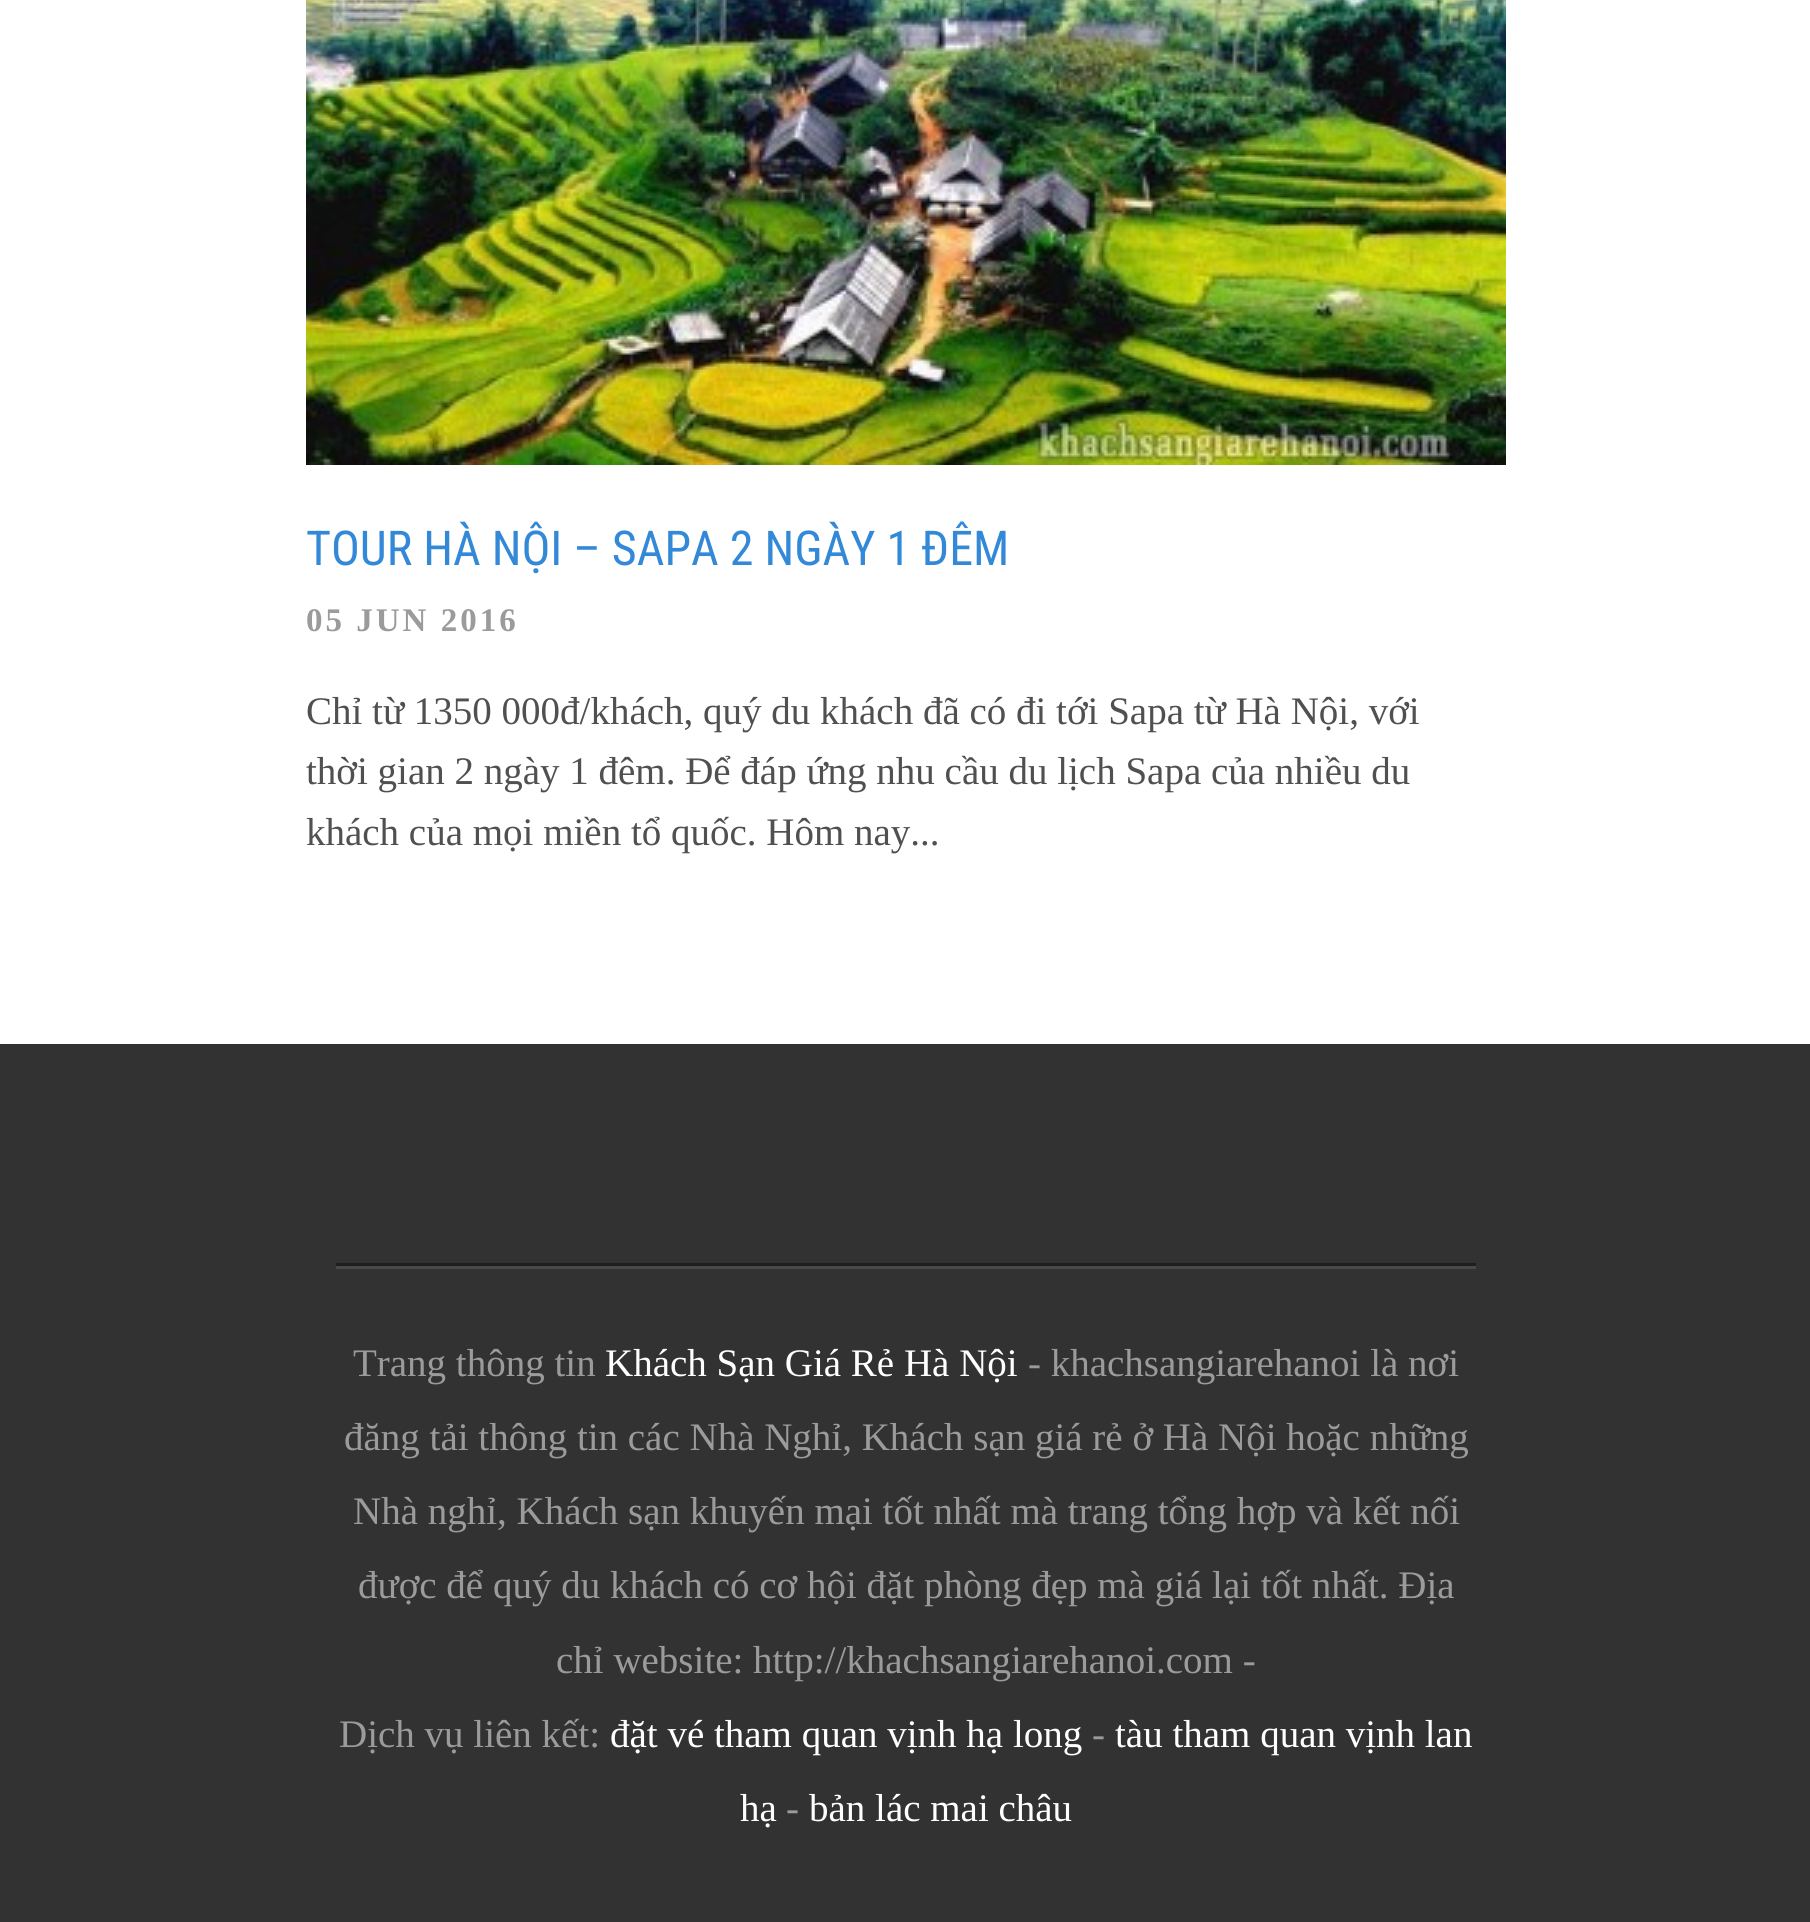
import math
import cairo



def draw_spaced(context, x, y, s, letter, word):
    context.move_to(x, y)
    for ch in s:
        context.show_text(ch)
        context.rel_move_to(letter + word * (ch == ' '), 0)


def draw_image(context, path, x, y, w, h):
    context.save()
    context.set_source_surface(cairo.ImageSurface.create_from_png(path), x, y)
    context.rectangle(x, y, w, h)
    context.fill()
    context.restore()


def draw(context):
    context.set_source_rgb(1, 1, 1)
    context.paint()
    draw_image(context, "images/1.png", 306, 0, 1200, 465)
    context.set_source_rgb(50 / 255, 50 / 255, 50 / 255)
    context.rectangle(0, 1044, 1810, 878)
    context.fill()
    context.set_source_rgb(30 / 255, 30 / 255, 30 / 255)
    context.rectangle(336, 1263, 1140, 3)
    context.fill()
    context.set_source_rgb(73 / 255, 73 / 255, 73 / 255)
    context.rectangle(336, 1266, 1140, 3)
    context.fill()
    context.select_font_face("Roboto Condensed")
    context.set_font_size(48)
    context.set_source_rgb(51 / 255, 137 / 255, 215 / 255)
    context.move_to(306, 565)
    context.show_text("TOUR HÀ NỘI – SAPA 2 NGÀY 1 ĐÊM")
    context.select_font_face("Liberation Serif", cairo.FontSlant.NORMAL, cairo.FontWeight.BOLD)
    context.set_font_size(33)
    context.set_source_rgb(155 / 255, 155 / 255, 155 / 255)
    draw_spaced(context, 306, 631, "05 JUN 2016", 3, 0)
    context.select_font_face("Liberation Serif")
    context.set_font_size(39)
    context.set_source_rgb(80 / 255, 80 / 255, 80 / 255)
    context.move_to(306, 724)
    context.show_text("Chỉ từ 1350 000đ/khách, quý du khách đã có đi tới Sapa từ Hà Nội, với")
    context.move_to(306, 784)
    context.show_text("thời gian 2 ngày 1 đêm. Để đáp ứng nhu cầu du lịch Sapa của nhiều du")
    context.move_to(306, 845)
    context.show_text("khách của mọi miền tổ quốc. Hôm nay...")
    context.set_source_rgb(155 / 255, 155 / 255, 155 / 255)
    context.move_to(353, 1376)
    context.show_text("Trang thông tin")
    context.set_source_rgb(1, 1, 1)
    context.move_to(605, 1376)
    context.show_text("Khách Sạn Giá Rẻ Hà Nội")
    context.set_source_rgb(155 / 255, 155 / 255, 155 / 255)
    context.move_to(1028, 1376)
    context.show_text("- khachsangiarehanoi là nơi")
    context.move_to(344, 1450)
    context.show_text("đăng tải thông tin các Nhà Nghỉ, Khách sạn giá rẻ ở Hà Nội hoặc những")
    context.move_to(353, 1524)
    context.show_text("Nhà nghỉ, Khách sạn khuyến mại tốt nhất mà trang tổng hợp và kết nối")
    context.move_to(358, 1598)
    context.show_text("được để quý du khách có cơ hội đặt phòng đẹp mà giá lại tốt nhất. Địa")
    context.move_to(556, 1673)
    context.show_text("chỉ website: http://khachsangiarehanoi.com -")
    context.move_to(339, 1747)
    context.show_text("Dịch vụ liên kết:")
    context.set_source_rgb(1, 1, 1)
    context.move_to(610, 1747)
    context.show_text("đặt vé tham quan vịnh hạ long")
    context.set_source_rgb(155 / 255, 155 / 255, 155 / 255)
    context.move_to(1092, 1747)
    context.show_text("-")
    context.set_source_rgb(1, 1, 1)
    context.move_to(1115, 1747)
    context.show_text("tàu tham quan vịnh lan")
    context.move_to(740, 1821)
    context.show_text("hạ")
    context.set_source_rgb(155 / 255, 155 / 255, 155 / 255)
    context.move_to(786, 1821)
    context.show_text("-")
    context.set_source_rgb(1, 1, 1)
    context.move_to(809, 1821)
    context.show_text("bản lác mai châu")


surface = cairo.ImageSurface(cairo.Format.RGB24, 1810, 1922)
context = cairo.Context(surface)
options = cairo.FontOptions()
options.set_hint_metrics(cairo.HintMetrics.OFF)
options.set_hint_style(cairo.HintStyle.NONE)
context.set_font_options(options)
context.set_miter_limit(4)
draw(context)
surface.write_to_png("out.png")
